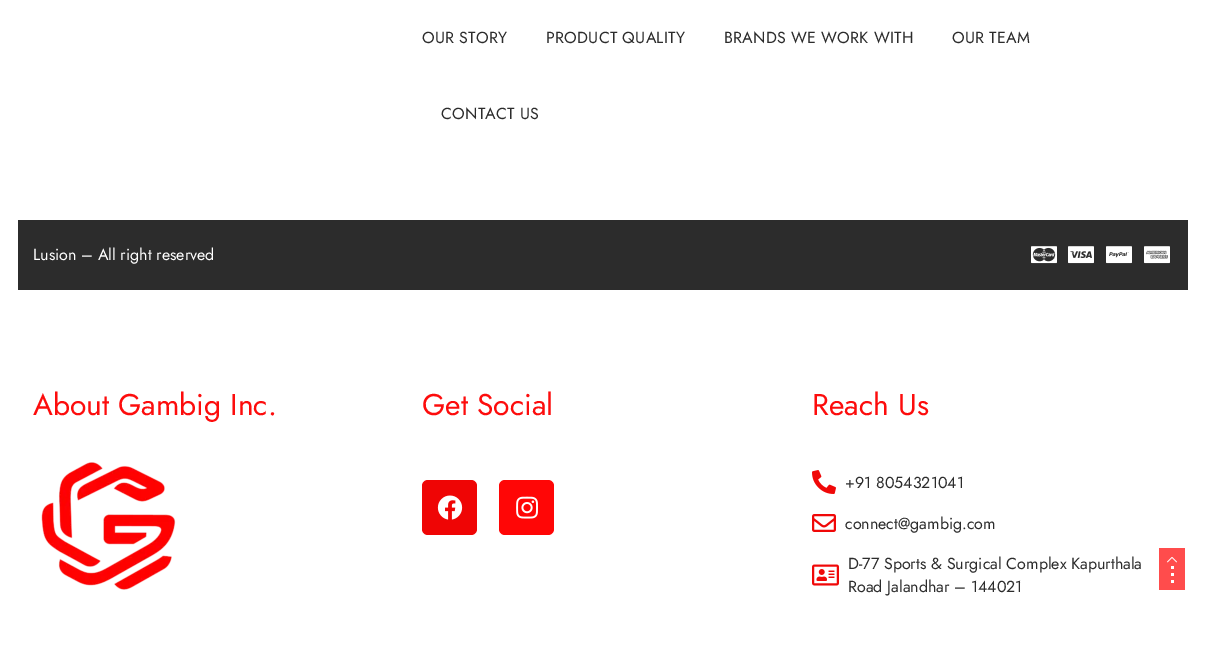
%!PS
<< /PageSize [1205 650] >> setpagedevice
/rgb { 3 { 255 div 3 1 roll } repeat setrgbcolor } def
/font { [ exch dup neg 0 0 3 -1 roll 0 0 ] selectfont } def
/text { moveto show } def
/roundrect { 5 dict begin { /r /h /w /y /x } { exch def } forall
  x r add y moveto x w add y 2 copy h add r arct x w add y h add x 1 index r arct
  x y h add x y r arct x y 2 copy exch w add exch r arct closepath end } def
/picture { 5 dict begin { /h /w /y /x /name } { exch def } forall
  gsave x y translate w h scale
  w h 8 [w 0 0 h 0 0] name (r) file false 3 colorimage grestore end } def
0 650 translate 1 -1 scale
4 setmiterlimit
255 255 255 rgb
0 0 1205 650 rectfill
44 44 44 rgb
18 220 1170 70 rectfill
(img_01.rgb) 1031 246 26 18 picture
(img_02.rgb) 1068 246 26 18 picture
(img_03.rgb) 1106 246 26 18 picture
(img_04.rgb) 1144 246 26 18 picture
(img_05.rgb) 41 462 135 128 picture
239 5 5 rgb
422 480 55 55 6 roundrect fill
(img_06.rgb) 437 495 26 25 picture
255 6 6 rgb
499 480 55 55 6 roundrect fill
(img_07.rgb) 516 496 22 23 picture
(img_08.rgb) 812 470 24 24 picture
(img_09.rgb) 812 514 24 18 picture
(img_10.rgb) 812 564 27 22 picture
255 76 76 rgb
1159 548 26 42 rectfill
(img_11.rgb) 1167 557 10 6 picture
255 255 255 rgb
1171 566 3 3 rectfill
1171 573 3 3 rectfill
1171 580 3 3 rectfill
/Jost-Regular 16 font
44 44 44 rgb
422 43 moveto 0.25 0 (OUR STORY) ashow
546 43 moveto 0.25 0 (PRODUCT QUALITY) ashow
724 43 moveto 0.25 0 (BRANDS WE WORK WITH) ashow
952 43 moveto 0.25 0 (OUR TEAM) ashow
441 119 moveto 0.25 0 (CONTACT US) ashow
255 255 255 rgb
(Lusion) 33 260 text
(– All right reserved) 81 260 text
/Jost-Regular 30 font
253 12 12 rgb
(About Gambig Inc.) 33 415 text
(Get Social) 422 415 text
(Reach Us) 812 415 text
/Jost-Regular 16 font
44 44 44 rgb
(+91 8054321041) 845 488 text
(connect@gambig.com) 845 529 text
(D-77 Sports & Surgical Complex Kapurthala) 848 569 text
(Road Jalandhar – 144021) 848 592 text
showpage
